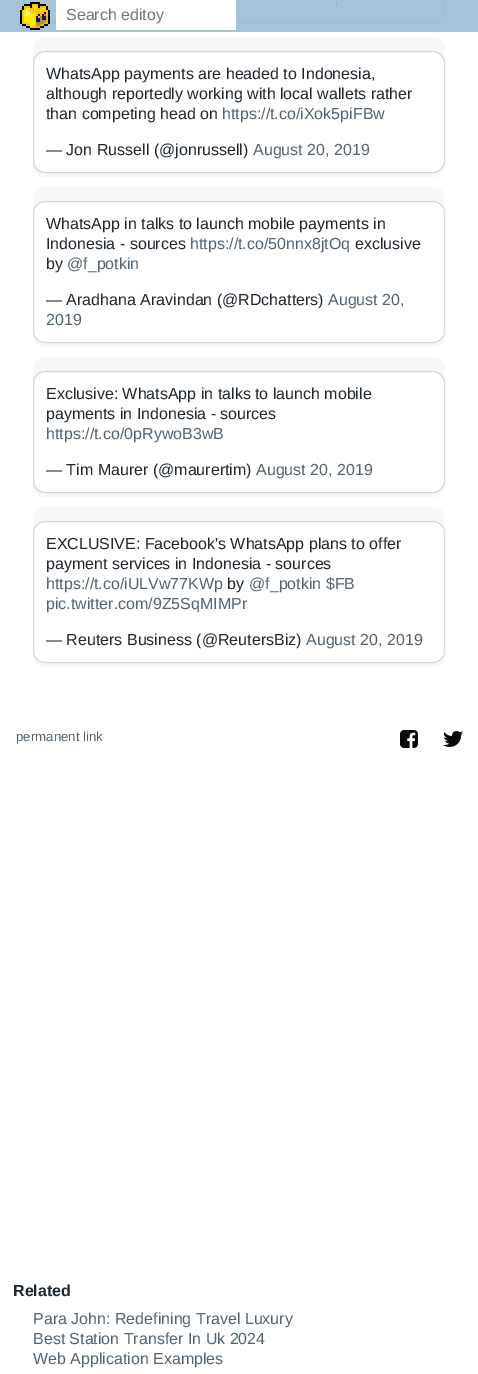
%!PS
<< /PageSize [478 1374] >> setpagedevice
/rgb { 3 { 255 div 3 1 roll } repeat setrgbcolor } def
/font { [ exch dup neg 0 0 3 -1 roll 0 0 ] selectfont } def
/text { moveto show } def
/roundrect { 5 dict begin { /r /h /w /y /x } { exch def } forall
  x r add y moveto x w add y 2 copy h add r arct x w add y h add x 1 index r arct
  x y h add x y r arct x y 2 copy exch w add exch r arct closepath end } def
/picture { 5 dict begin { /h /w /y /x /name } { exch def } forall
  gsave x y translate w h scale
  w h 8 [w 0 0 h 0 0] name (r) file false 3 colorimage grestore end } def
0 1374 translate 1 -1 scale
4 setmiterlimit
255 255 255 rgb
0 0 478 1374 rectfill
166 195 215 rgb
0 0 478 32 rectfill
160 191 211 rgb
33.5 -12.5 411 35 11.5 roundrect stroke
247 247 247 rgb
33 37 412 140 12 roundrect fill
255 255 255 rgb
33.5 51.5 411 121 11.5 roundrect gsave fill grestore
207 217 222 rgb
stroke
247 247 247 rgb
33 187 412 160 12 roundrect fill
255 255 255 rgb
33.5 201.5 411 141 11.5 roundrect gsave fill grestore
207 217 222 rgb
stroke
247 247 247 rgb
33 357 412 140 12 roundrect fill
255 255 255 rgb
33.5 371.5 411 121 11.5 roundrect gsave fill grestore
207 217 222 rgb
stroke
247 247 247 rgb
33 507 412 160 12 roundrect fill
255 255 255 rgb
33.5 521.5 411 141 11.5 roundrect gsave fill grestore
207 217 222 rgb
stroke
(img_01.rgb) 400 730 18 18 picture
(img_02.rgb) 443 731 20 16 picture
(img_03.rgb) 20 2 30 28 picture
180 190 180 rgb
56 30 180 1 rectfill
255 255 255 rgb
56 0 180 30 rectfill
/LiberationSans-Regular 16 font
145 177 197 rgb
(,) 334 5 text
31 39 47 rgb
(WhatsApp payments are headed to Indonesia,) 46 79 text
(although reportedly working with local wallets rather) 46 99 text
(than competing head on) 46 119 text
83 100 113 rgb
(https://t.co/iXok5piFBw) 222 119 text
31 39 47 rgb
(— Jon Russell \(@jonrussell\)) 46 155 text
83 100 113 rgb
(August 20, 2019) 253 155 text
31 39 47 rgb
(WhatsApp in talks to launch mobile payments in) 46 229 text
(Indonesia - sources) 46 249 text
83 100 113 rgb
(https://t.co/50nnx8jtOq) 190 249 text
31 39 47 rgb
(exclusive) 355 249 text
(by) 46 269 text
83 100 113 rgb
(@f_potkin) 67 269 text
31 39 47 rgb
(— Aradhana Aravindan \(@RDchatters\)) 46 305 text
83 100 113 rgb
(August 20,) 328 305 text
(2019) 46 325 text
31 39 47 rgb
(Exclusive: WhatsApp in talks to launch mobile) 46 399 text
(payments in Indonesia - sources) 46 419 text
83 100 113 rgb
(https://t.co/0pRywoB3wB) 46 439 text
31 39 47 rgb
(— Tim Maurer \(@maurertim\)) 46 475 text
83 100 113 rgb
(August 20, 2019) 256 475 text
31 39 47 rgb
(EXCLUSIVE: Facebook's WhatsApp plans to offer) 46 549 text
(payment services in Indonesia - sources) 46 569 text
83 100 113 rgb
(https://t.co/iULVw77KWp) 46 589 text
31 39 47 rgb
(by) 227 589 text
83 100 113 rgb
(@f_potkin $FB) 249 589 text
(pic.twitter.com/9Z5SqMIMPr) 46 609 text
31 39 47 rgb
(— Reuters Business \(@ReutersBiz\)) 46 645 text
83 100 113 rgb
(August 20, 2019) 306 645 text
/LiberationSans-Regular 13.25 font
(permanent link) 16 741 text
/LiberationSans-Bold 16 font
31 39 47 rgb
(Related) 13 1296 text
/LiberationSans-Regular 16 font
83 100 113 rgb
(Para John: Redefining Travel Luxury) 33 1324 text
(Best Station Transfer In Uk 2024) 33 1344 text
(Web Application Examples) 33 1364 text
117 117 117 rgb
(Search editoy) 66 20 text
showpage
